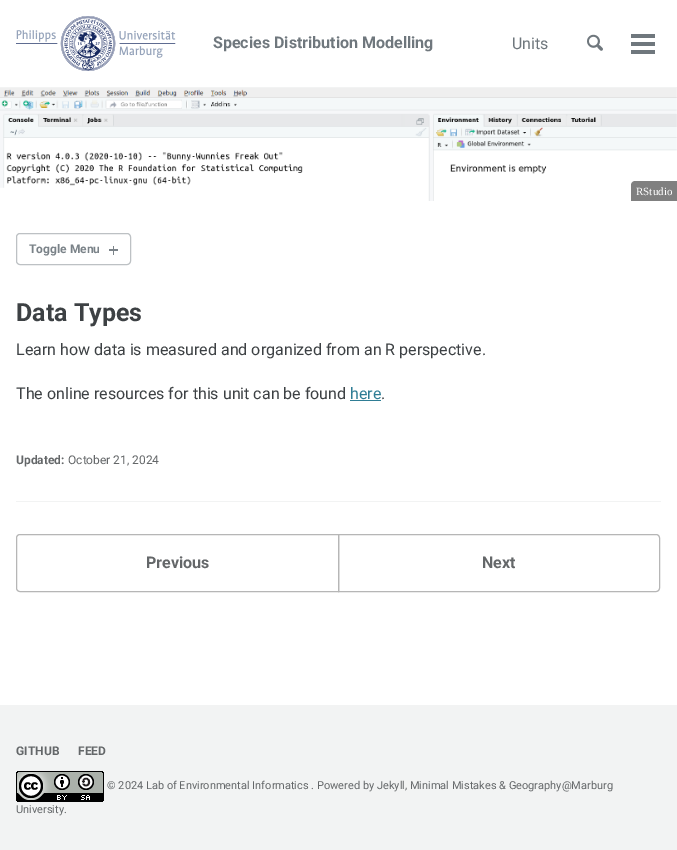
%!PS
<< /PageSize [677 850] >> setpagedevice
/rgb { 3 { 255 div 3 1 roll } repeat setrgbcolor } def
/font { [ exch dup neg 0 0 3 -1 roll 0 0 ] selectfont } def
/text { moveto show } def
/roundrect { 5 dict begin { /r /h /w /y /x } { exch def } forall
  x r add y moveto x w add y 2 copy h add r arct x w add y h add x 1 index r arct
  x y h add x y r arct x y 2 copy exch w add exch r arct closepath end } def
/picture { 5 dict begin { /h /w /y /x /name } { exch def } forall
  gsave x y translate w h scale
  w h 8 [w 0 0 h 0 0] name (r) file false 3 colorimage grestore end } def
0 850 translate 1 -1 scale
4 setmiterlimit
255 255 255 rgb
0 0 677 850 rectfill
242 243 243 rgb
0 87 677 1 rectfill
(img_01.rgb) 16 16 160 55 picture
(img_02.rgb) 587 34 16 17 picture
111 119 125 rgb
631 42 24 4 rectfill
631 34 24 4 rectfill
631 50 24 4 rectfill
(img_03.rgb) 0 88 677 113 picture
128 128 128 rgb
635 181 moveto 42 0 rlineto 0 20 rlineto -46 0 rlineto 0 -16 rlineto 0 -2 2 -4 4 -4 rcurveto closepath fill
189 193 196 rgb
16.5 233.5 114 31 3.5 roundrect stroke
122 130 136 rgb
109 249 9 2 rectfill
113 246 1 9 rectfill
47 125 149 rgb
350 400 31 1 rectfill
242 243 243 rgb
16 501 645 1 rectfill
182 182 182 rgb
20 534.5 moveto 318.5 0 rlineto 0 57 rlineto -318.5 0 rlineto -2 0 -3.5 -1.5 -3.5 -3.5 rcurveto 0 -50 rlineto 0 -2 1.5 -3.5 3.5 -3.5 rcurveto closepath stroke
338.5 534.5 moveto 317.5 0 rlineto 2 0 3.5 1.5 3.5 3.5 rcurveto 0 50 rlineto 0 2 -1.5 3.5 -3.5 3.5 rcurveto -317.5 0 rlineto closepath stroke
242 243 243 rgb
0 705 677 145 rectfill
(img_04.rgb) 16 771 88 31 picture
/Roboto-Bold 16 font
111 119 125 rgb
(Species Distribution Modelling) 213 48 text
/Roboto-Regular 16 font
(Units) 512 49 text
/LiberationSerif-Regular 11 font
255 255 255 rgb
(RStudio) 636 195 text
/Roboto-Bold 12 font
122 130 136 rgb
(Toggle Menu) 29 253 text
/Roboto-Bold 25 font
61 65 68 rgb
(Data Types) 16 321 text
/Roboto-Regular 16 font
(Learn how data is measured and organized from an R perspective.) 16 355 text
(The online resources for this unit can be found) 16 399 text
47 125 149 rgb
(here) 350 399 text
61 65 68 rgb
(.) 381 399 text
/Roboto-Bold 12 font
100 103 105 rgb
(Updated:) 16 464 text
/Roboto-Regular 12 font
(October 21, 2024) 68 464 text
/Roboto-Bold 16 font
(Previous) 146 568 text
(Next) 482 568 text
/Roboto-Bold 12 font
(GITHUB) 16 755 text
(FEED) 78 755 text
/Roboto-Regular 11 font
(© 2024 Lab of Environmental Informatics . Powered by Jekyll, Minimal Mistakes & Geography@Marburg) 107 789 text
(University.) 16 813 text
showpage
